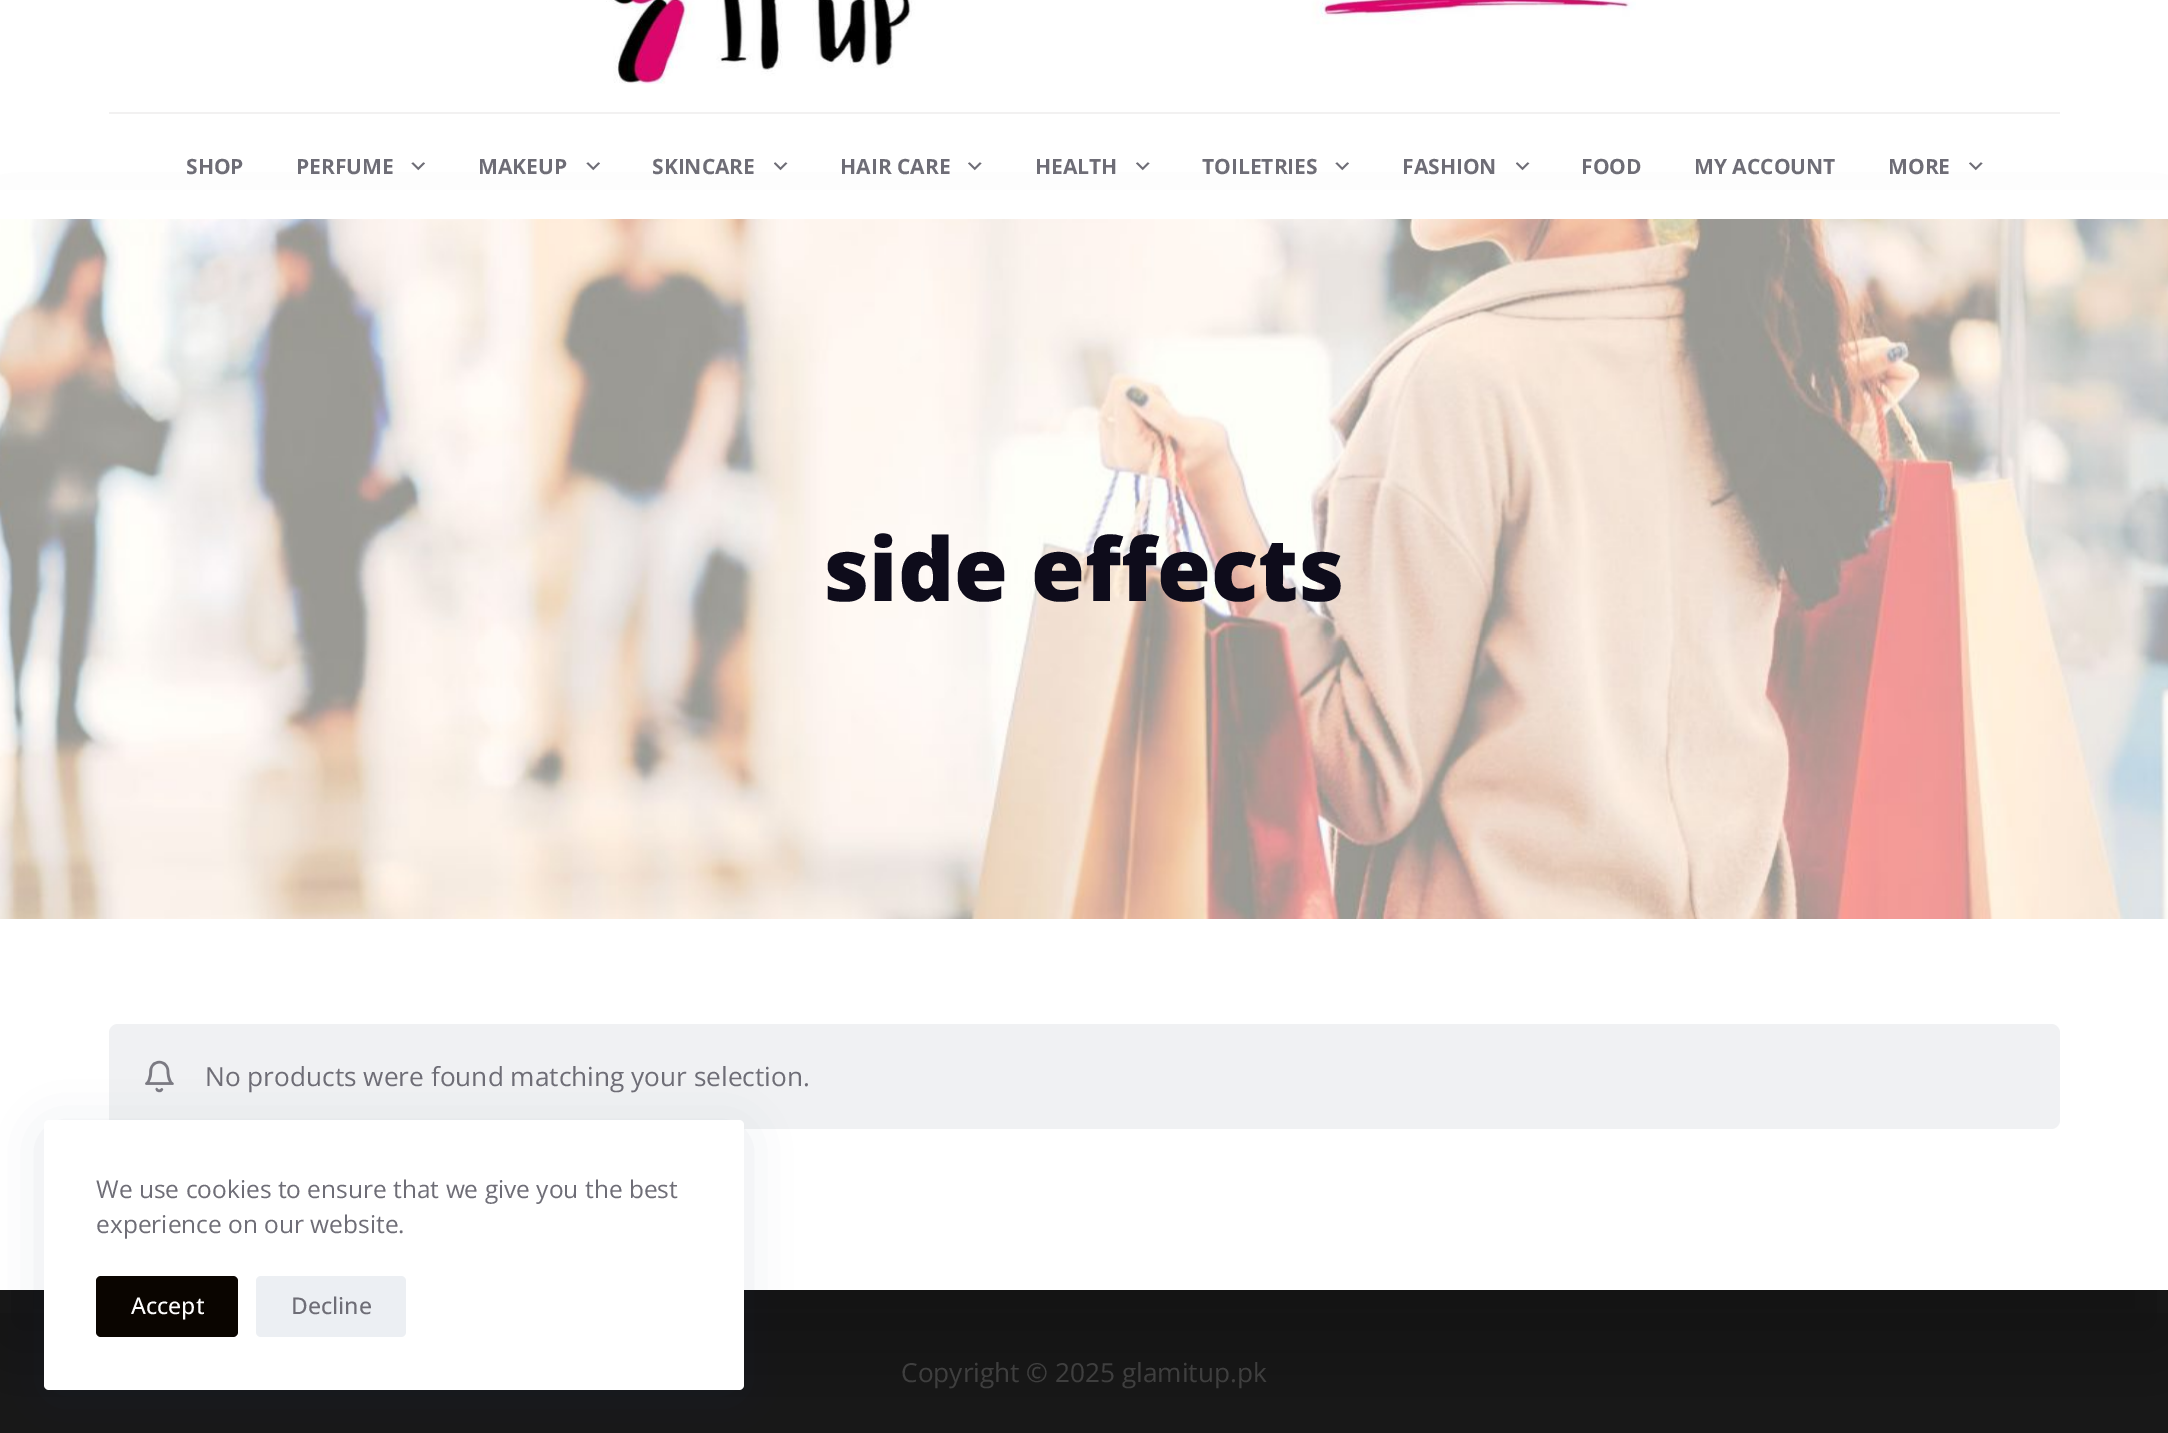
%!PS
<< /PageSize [2168 1433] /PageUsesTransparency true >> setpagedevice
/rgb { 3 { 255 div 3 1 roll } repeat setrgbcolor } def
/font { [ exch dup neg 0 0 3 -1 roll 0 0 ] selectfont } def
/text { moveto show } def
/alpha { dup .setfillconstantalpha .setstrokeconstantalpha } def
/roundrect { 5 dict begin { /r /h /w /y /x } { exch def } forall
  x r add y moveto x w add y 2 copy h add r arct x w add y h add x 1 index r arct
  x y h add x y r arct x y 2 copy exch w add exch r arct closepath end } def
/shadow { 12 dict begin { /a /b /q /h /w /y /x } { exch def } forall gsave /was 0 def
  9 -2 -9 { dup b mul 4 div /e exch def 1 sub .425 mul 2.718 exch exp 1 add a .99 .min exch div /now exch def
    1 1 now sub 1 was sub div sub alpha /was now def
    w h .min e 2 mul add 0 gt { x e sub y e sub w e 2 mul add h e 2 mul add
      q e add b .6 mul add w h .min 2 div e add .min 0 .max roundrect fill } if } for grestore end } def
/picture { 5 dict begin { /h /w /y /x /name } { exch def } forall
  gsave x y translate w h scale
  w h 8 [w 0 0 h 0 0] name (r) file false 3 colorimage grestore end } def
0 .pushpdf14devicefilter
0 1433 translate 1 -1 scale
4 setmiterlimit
255 255 255 rgb
0 0 2168 1433 rectfill
(img_01.rgb) 606 0 1030 84 picture
27 27 27 rgb
0 1290 2168 23 rectfill
24 24 24 rgb
0 1313 2168 120 rectfill
0 0 0 rgb
0 271 2168 1071 0 44 0.3 shadow
255 255 255 rgb
0 190 2168 29 rectfill
242 241 241 rgb
109 112 1951 2 rectfill
(img_02.rgb) 411 162 14 9 picture
(img_02.rgb) 586 162 14 9 picture
(img_03.rgb) 774 162 14 9 picture
(img_04.rgb) 968 162 14 9 picture
(img_04.rgb) 1136 162 14 9 picture
(img_02.rgb) 1335 162 14 9 picture
(img_03.rgb) 1516 162 14 9 picture
(img_04.rgb) 1969 162 14 9 picture
255 255 255 rgb
0 919 2168 371 rectfill
(img_05.rgb) 0 219 2168 700 picture
240 241 243 rgb
109 1024 1951 105 9 roundrect fill
(img_06.rgb) 145 1060 29 33 picture
34 56 101 rgb
53 1138 682 252 0 26 0.15 shadow
255 255 255 rgb
44 1120 700 270 5 roundrect fill
10 5 0 rgb
96 1276 142 61 5 roundrect fill
236 239 243 rgb
256 1276 150 61 5 roundrect fill
/OpenSans-Bold 21 font
110 109 118 rgb
(SHOP) 186 174 text
(PERFUME) 296 174 text
(MAKEUP) 478 174 text
(SKINCARE) 652 174 text
(HAIR CARE) 840 174 text
(HEALTH) 1035 174 text
(TOILETRIES) 1202 174 text
(FASHION) 1402 174 text
(FOOD) 1581 174 text
(MY ACCOUNT) 1694 174 text
(MORE) 1888 174 text
/OpenSans-ExtraBold 87.5 font
14 12 27 rgb
(side effects) 824 601 text
/OpenSans-Regular 26.25 font
110 109 118 rgb
(No products were found matching your selection.) 205 1086 text
63 63 63 rgb
(Copyright © 2025 glamitup.pk) 901 1382 text
/OpenSans-Regular 24.5 font
110 109 118 rgb
(We use cookies to ensure that we give you the best) 96 1198 text
(experience on our website.) 96 1233 text
/OpenSans-Medium 23 font
255 255 255 rgb
(Accept) 131 1314 text
110 109 118 rgb
(Decline) 291 1314 text
.poppdf14devicefilter showpage
